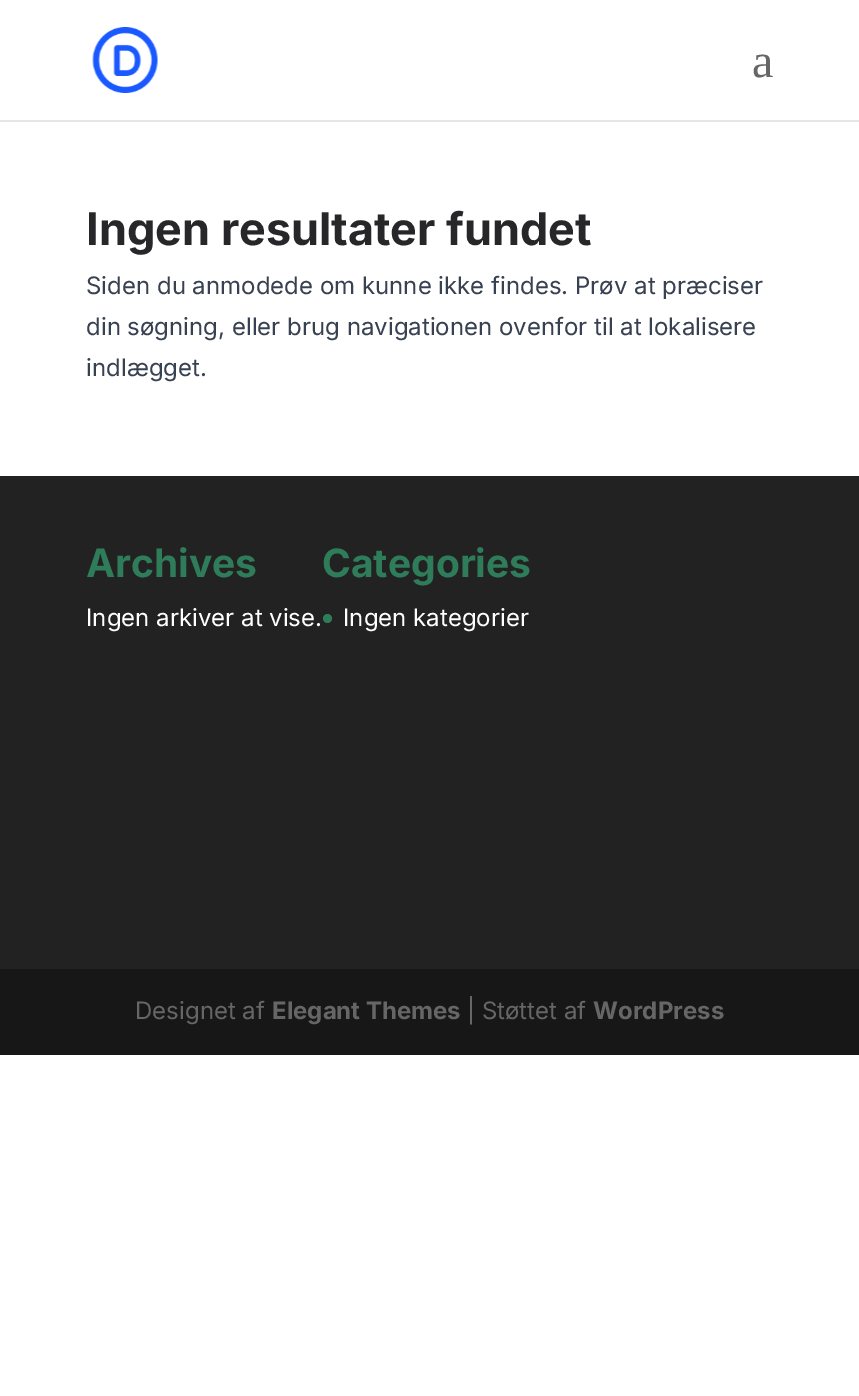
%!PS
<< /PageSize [859 1396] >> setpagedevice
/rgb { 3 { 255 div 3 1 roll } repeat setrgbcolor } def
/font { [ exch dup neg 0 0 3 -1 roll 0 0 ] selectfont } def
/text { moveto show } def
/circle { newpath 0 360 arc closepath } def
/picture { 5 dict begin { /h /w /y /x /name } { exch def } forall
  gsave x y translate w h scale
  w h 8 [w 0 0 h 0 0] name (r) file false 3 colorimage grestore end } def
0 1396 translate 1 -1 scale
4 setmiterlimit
255 255 255 rgb
0 0 859 1396 rectfill
230 230 230 rgb
0 120 moveto 0 2 rlineto 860 0 rlineto 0 -120 rlineto 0 118 rlineto closepath fill
(img_01.rgb) 92 27 66 66 picture
34 34 34 rgb
0 476 859 493 rectfill
46 124 90 rgb
327.5 618.5 4.5 circle fill
23 23 23 rgb
0 969 859 86 rectfill
/LiberationSerif-Regular 48 font
102 102 102 rgb
(a) 752 77 text
/Inter-Bold 45 font
39 39 42 rgb
(Ingen resultater fundet) 86 245 text
/Inter-Regular 24 font
55 65 81 rgb
(Siden du anmodede om kunne ikke findes. Prøv at præciser) 86 294 text
(din søgning, eller brug navigationen ovenfor til at lokalisere) 86 335 text
(indlægget.) 86 376 text
/Inter-Bold 39 font
46 124 90 rgb
(Archives) 86 577 text
/Inter-Regular 24 font
255 255 255 rgb
(Ingen arkiver at vise.) 86 626 text
/Inter-Bold 39 font
46 124 90 rgb
(Categories) 322 577 text
/Inter-Regular 24 font
255 255 255 rgb
(Ingen kategorier) 343 626 text
102 102 102 rgb
(Designet af) 135 1019 text
/Inter-Bold 24 font
(Elegant Themes) 272 1019 text
/Inter-Regular 24 font
(| Støttet af) 467 1019 text
/Inter-Bold 24 font
(WordPress) 593 1019 text
showpage
